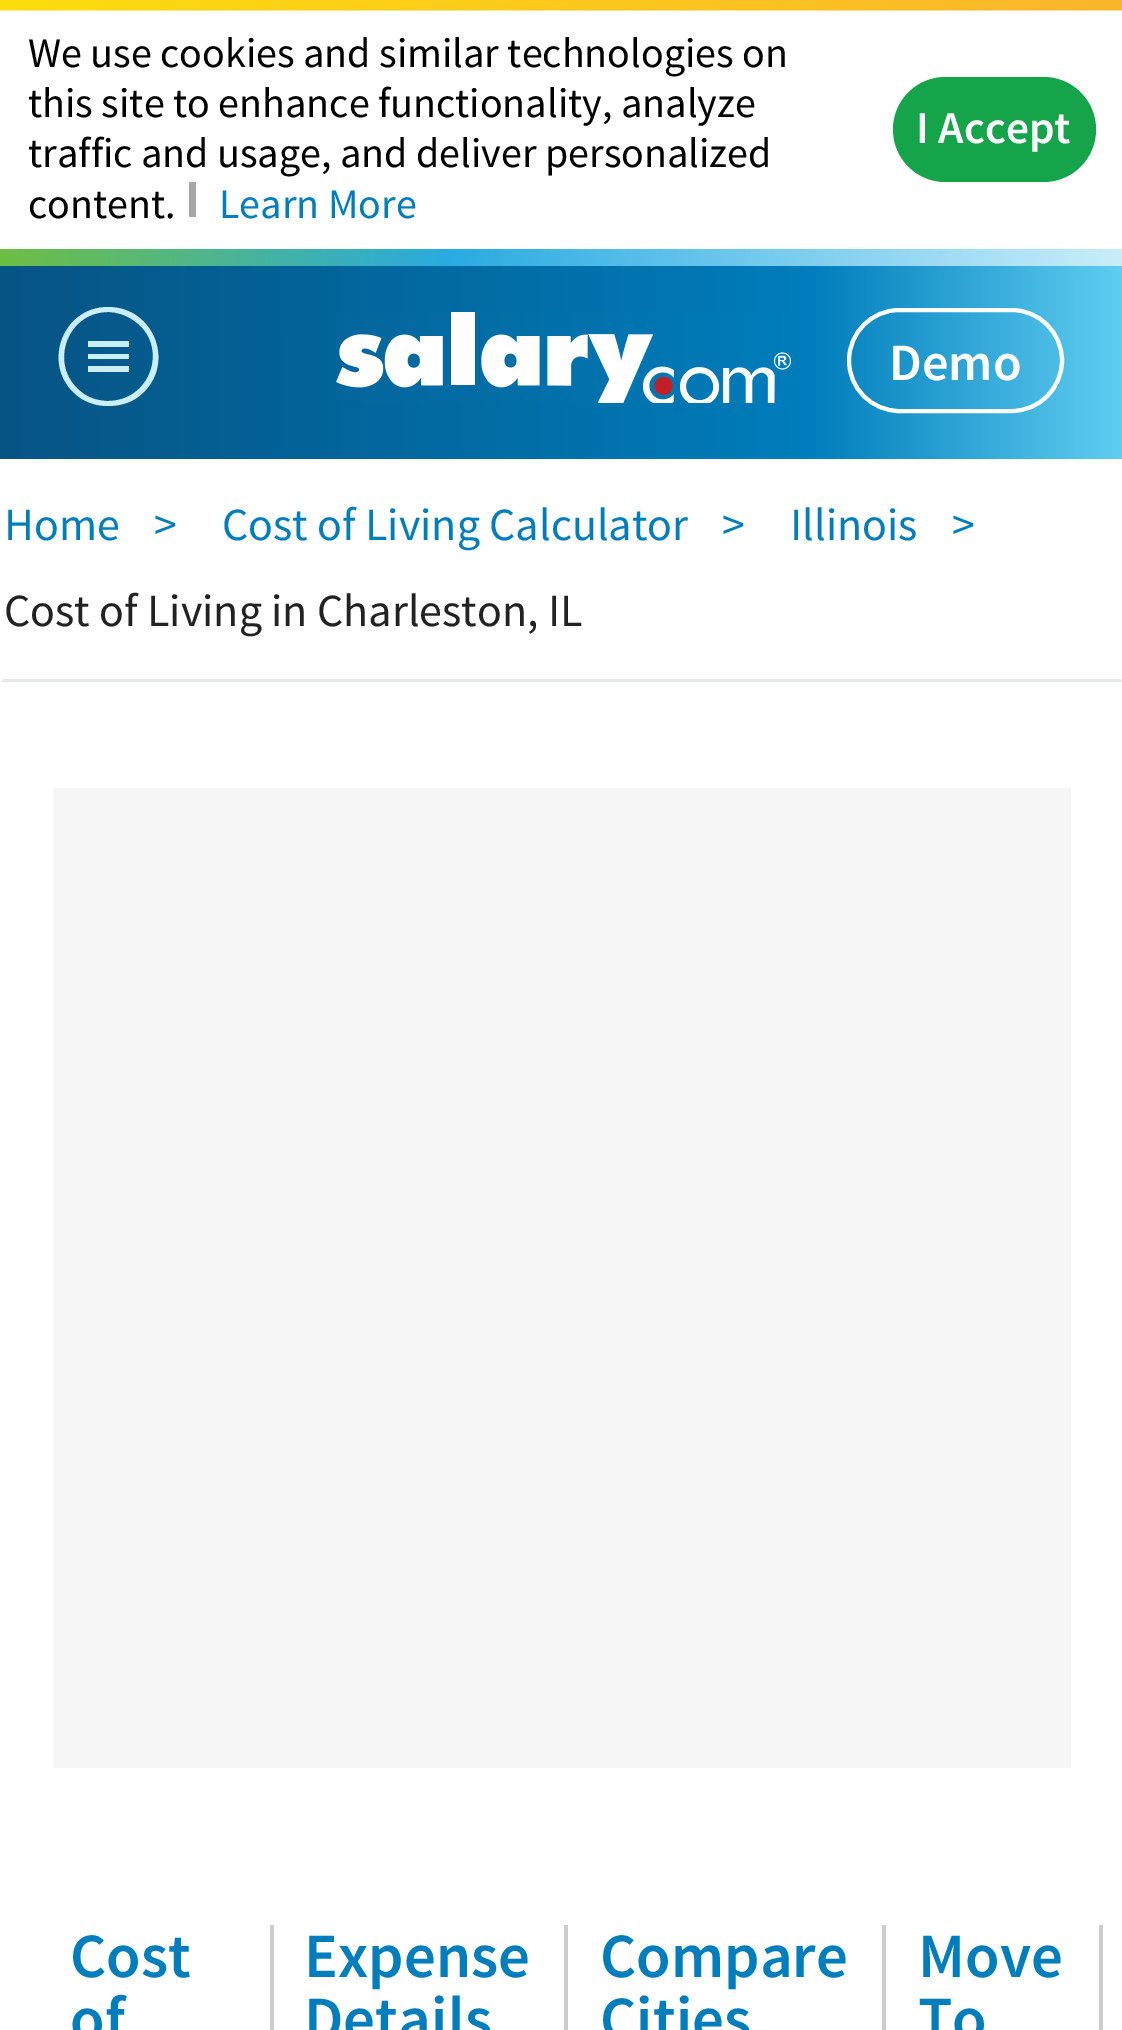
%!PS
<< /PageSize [1122 2030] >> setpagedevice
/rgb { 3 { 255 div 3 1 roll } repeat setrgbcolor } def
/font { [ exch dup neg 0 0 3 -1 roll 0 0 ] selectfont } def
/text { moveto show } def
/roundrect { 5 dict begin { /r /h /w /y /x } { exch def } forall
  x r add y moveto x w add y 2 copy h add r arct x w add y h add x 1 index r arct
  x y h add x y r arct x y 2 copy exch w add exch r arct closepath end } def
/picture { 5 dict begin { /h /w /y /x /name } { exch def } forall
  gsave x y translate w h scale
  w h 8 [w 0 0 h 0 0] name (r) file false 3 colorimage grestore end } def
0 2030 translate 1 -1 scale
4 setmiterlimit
255 255 255 rgb
0 0 1122 2030 rectfill
(img_01.rgb) 0 0 1122 11 picture
167 167 167 rgb
189 182 7 35 rectfill
22 164 74 rgb
893 77 203 105 52.5 roundrect fill
gsave 0 266 moveto 1122 0 rlineto 0 193 rlineto -1122 0 rlineto closepath clip newpath
<< /ShadingType 2 /ColorSpace /DeviceRGB /Coords [0 354 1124 353] /Extend [true true] /Function << /FunctionType 3 /Domain [0 1] /Functions [<< /FunctionType 2 /Domain [0 1] /C0 [0.027 0.329 0.518] /C1 [0 0.49 0.737] /N 1 >> << /FunctionType 2 /Domain [0 1] /C0 [0 0.49 0.737] /C1 [0.376 0.808 0.945] /N 1 >>] /Bounds [0.72] /Encode [0 1 0 1] >> >> shfill grestore
gsave 0 249 moveto 1122 0 rlineto 0 17 rlineto -1122 0 rlineto closepath clip newpath
<< /ShadingType 2 /ColorSpace /DeviceRGB /Coords [0 257 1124 257] /Extend [true true] /Function << /FunctionType 3 /Domain [0 1] /Functions [<< /FunctionType 2 /Domain [0 1] /C0 [0.435 0.745 0.267] /C1 [0.161 0.671 0.886] /N 1 >> << /FunctionType 2 /Domain [0 1] /C0 [0.161 0.671 0.886] /C1 [0.792 0.933 0.98] /N 1 >>] /Bounds [0.4] /Encode [0 1 0 1] >> >> shfill grestore
202 238 250 rgb
88 341 moveto 41 0 rlineto 0 6 rlineto -41 0 rlineto closepath 88 354 moveto 41 0 rlineto 0 5 rlineto -41 0 rlineto closepath 88 366 moveto 41 0 rlineto 0 6 rlineto -41 0 rlineto closepath 108 307 moveto -47 0 -68 61 -29 90 rcurveto 8 6 19 9 29 9 rcurveto 11 0 22 -3 30 -9 rcurveto 39 -29 18 -90 -30 -90 rcurveto closepath 108 401 moveto -8 0 -17 -2 -24 -7 rcurveto -37 -25 -19 -82 24 -82 rcurveto 9 0 18 3 25 8 rcurveto 37 24 19 81 -25 81 rcurveto closepath fill
(img_02.rgb) 336 312 455 91 picture
255 255 255 rgb
4 setlinewidth
849 310 213 101 50.5 roundrect stroke
230 231 232 rgb
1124 682 moveto -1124 0 rlineto 4 -3 rlineto 1116 0 rlineto closepath fill
246 246 246 rgb
53 788 1018 980 rectfill
204 204 204 rgb
270 1925 4 105 rectfill
564 1925 4 105 rectfill
882 1925 4 105 rectfill
1099 1925 4 105 rectfill
/SourceSansPro-Regular 42 font
0 0 0 rgb
(We use cookies and similar technologies on) 28 67 text
(this site to enhance functionality, analyze) 28 117 text
(traffic and usage, and deliver personalized) 28 167 text
(content.) 28 218 text
0 125 188 rgb
(Learn More) 219 218 text
/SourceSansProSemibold-SemiBold 45.5 font
255 255 255 rgb
(I Accept) 916 143 text
/SourceSansProSemibold-SemiBold 52.5 font
(Demo) 889 380 text
/SourceSansPro-Regular 46 font
0 125 188 rgb
(Home) 4 540 text
(>) 154 540 text
(Cost of Living Calculator) 222 540 text
(>) 722 540 text
(Illinois) 790 540 text
(>) 952 540 text
33 34 33 rgb
(Cost of Living in Charleston, IL) 4 626 text
/SourceSansProSemibold-SemiBold 63 font
0 125 188 rgb
(Cost) 70 1977 text
(of) 70 2040 text
(Expense) 304 1977 text
(Details) 304 2040 text
(Compare) 600 1977 text
(Cities) 600 2040 text
(Move) 918 1977 text
(To) 918 2040 text
showpage
